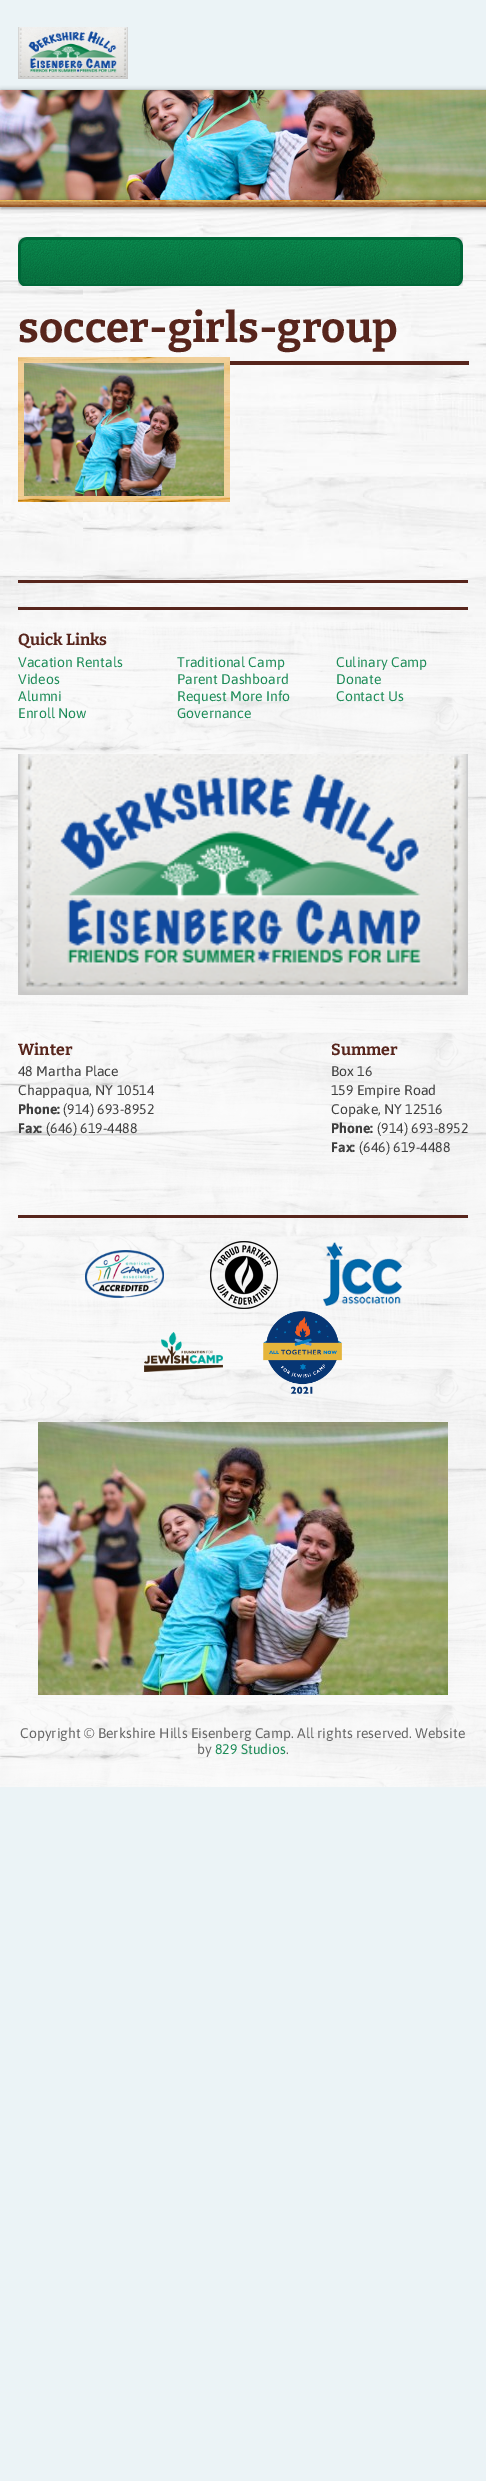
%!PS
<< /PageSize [486 2481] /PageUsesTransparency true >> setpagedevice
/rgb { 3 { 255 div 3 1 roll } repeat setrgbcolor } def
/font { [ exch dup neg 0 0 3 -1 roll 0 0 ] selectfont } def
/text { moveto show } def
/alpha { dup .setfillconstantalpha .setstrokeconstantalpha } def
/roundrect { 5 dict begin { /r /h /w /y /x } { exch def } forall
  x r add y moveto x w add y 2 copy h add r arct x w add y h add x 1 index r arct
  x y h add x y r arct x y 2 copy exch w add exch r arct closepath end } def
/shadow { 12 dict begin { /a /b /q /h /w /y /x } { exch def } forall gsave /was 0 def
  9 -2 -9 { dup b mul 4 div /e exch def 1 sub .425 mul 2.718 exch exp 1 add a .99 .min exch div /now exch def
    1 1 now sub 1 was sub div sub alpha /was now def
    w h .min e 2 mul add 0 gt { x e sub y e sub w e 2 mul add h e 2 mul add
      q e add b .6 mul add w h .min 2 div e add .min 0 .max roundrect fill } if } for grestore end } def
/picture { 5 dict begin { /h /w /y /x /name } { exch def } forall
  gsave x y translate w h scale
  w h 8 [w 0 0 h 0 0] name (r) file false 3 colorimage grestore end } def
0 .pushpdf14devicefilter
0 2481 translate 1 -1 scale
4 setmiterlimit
235 243 246 rgb
0 0 486 2481 rectfill
(img_01.rgb) 18 27 110 52 picture
(img_04.rgb) 0 207 486 415 picture
0 0 0 rgb
1 91 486 117 0 2.5 0.5 shadow
(img_02.rgb) 0 90 486 110 picture
gsave
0 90 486 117 rectclip
1 201 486 7 0 2 0.5 shadow
grestore
(img_03.rgb) 0 200 486 7 picture
(img_05.rgb) 18 237 430 49 picture
(img_06.rgb) 448 237 15 49 picture
87 37 28 rgb
230 361 239 4 rectfill
(img_07.rgb) 18 357 212 145 picture
18 580 450 3 rectfill
18 607 450 3 rectfill
(img_08.rgb) 0 622 486 1165 picture
(img_09.rgb) 18 754 450 241 picture
18 1215 450 3 rectfill
(img_10.rgb) 85 1250 79 48 picture
(img_11.rgb) 210 1241 68 68 picture
(img_12.rgb) 323 1242 79 64 picture
(img_13.rgb) 144 1332 79 40 picture
(img_14.rgb) 263 1311 79 83 picture
(img_15.rgb) 38 1422 410 273 picture
/Bitter-Bold 42 font
(soccer-girls-group) 18 342 text
/Bitter-Bold 16 font
(Quick Links) 18 645 text
/Asap-Regular 14 font
30 140 89 rgb
(Vacation Rentals) 18 667 text
(Traditional Camp) 177 667 text
(Culinary Camp) 336 667 text
(Videos) 18 684 text
(Parent Dashboard) 177 684 text
(Donate) 336 684 text
(Alumni) 18 701 text
(Request More Info) 177 701 text
(Contact Us) 336 701 text
(Enroll Now) 18 718 text
(Governance) 177 718 text
/Bitter-Bold 16 font
87 37 28 rgb
(Winter) 18 1055 text
/Asap-Regular 14 font
63 63 63 rgb
(48 Martha Place) 18 1076 text
(Chappaqua, NY 10514) 18 1095 text
/Asap-Bold 14 font
(Phone:) 18 1114 text
/Asap-Regular 14 font
(\(914\) 693-8952) 63 1114 text
/Asap-Bold 14 font
(Fax:) 18 1133 text
/Asap-Regular 14 font
(\(646\) 619-4488) 46 1133 text
/Bitter-Bold 16 font
87 37 28 rgb
(Summer) 331 1055 text
/Asap-Regular 14 font
63 63 63 rgb
(Box 16) 331 1076 text
(159 Empire Road) 331 1095 text
(Copake, NY 12516) 331 1114 text
/Asap-Bold 14 font
(Phone:) 331 1133 text
/Asap-Regular 14 font
(\(914\) 693-8952) 377 1133 text
/Asap-Bold 14 font
(Fax:) 331 1152 text
/Asap-Regular 14 font
(\(646\) 619-4488) 359 1152 text
102 102 102 rgb
(Copyright © Berkshire Hills Eisenberg Camp. All rights reserved. Website) 20 1738 text
(by) 197 1754 text
30 140 89 rgb
(829 Studios) 215 1754 text
102 102 102 rgb
(.) 286 1754 text
.poppdf14devicefilter showpage
